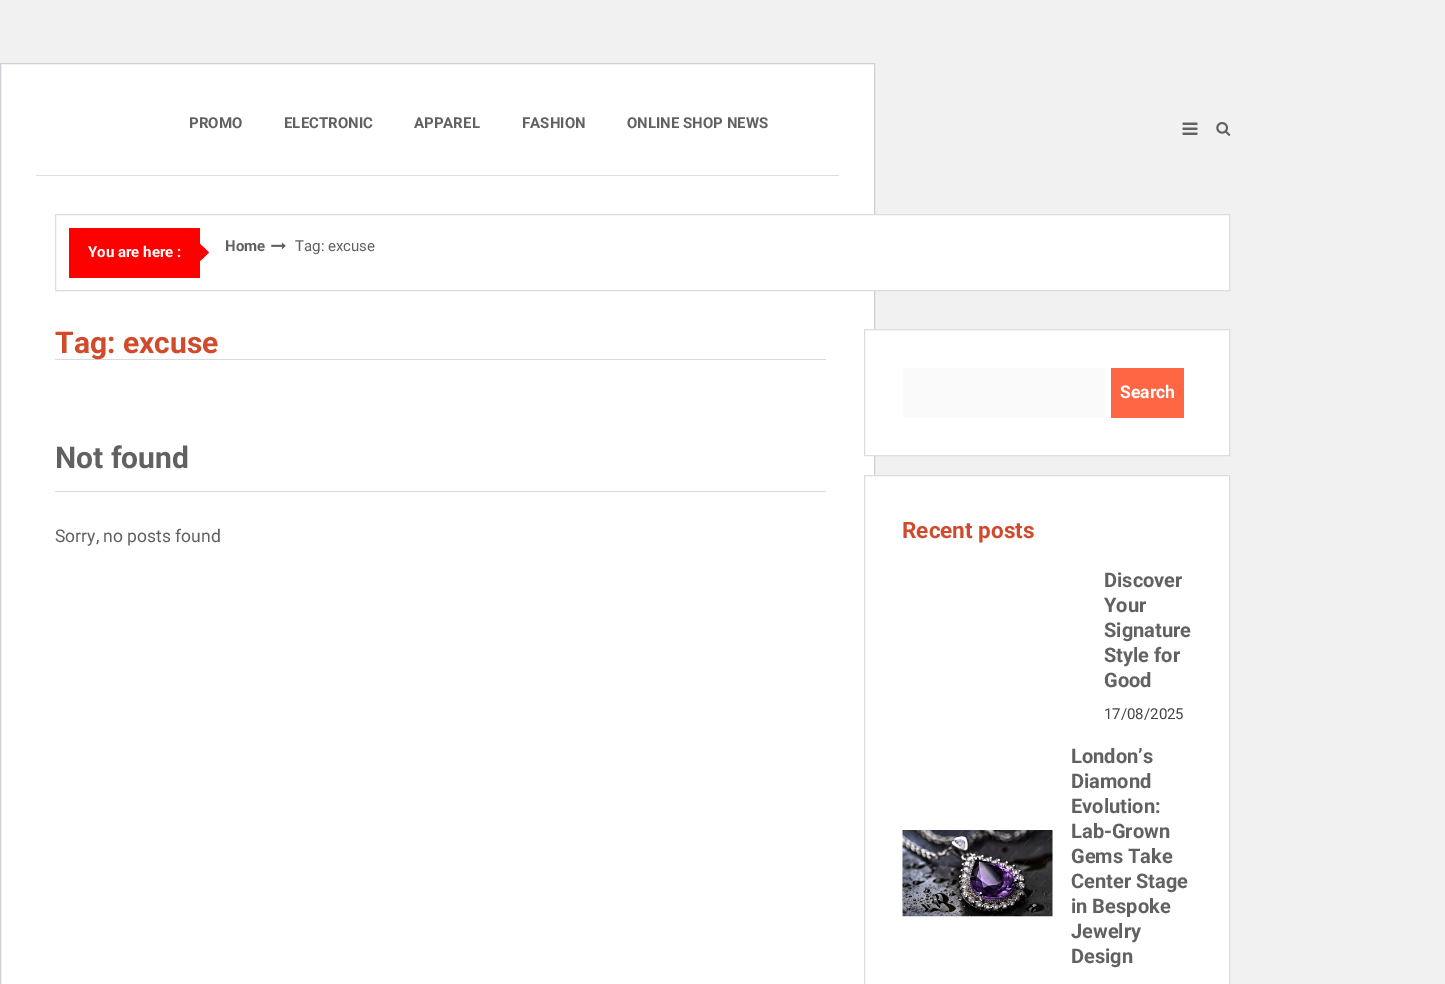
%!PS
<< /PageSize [1445 984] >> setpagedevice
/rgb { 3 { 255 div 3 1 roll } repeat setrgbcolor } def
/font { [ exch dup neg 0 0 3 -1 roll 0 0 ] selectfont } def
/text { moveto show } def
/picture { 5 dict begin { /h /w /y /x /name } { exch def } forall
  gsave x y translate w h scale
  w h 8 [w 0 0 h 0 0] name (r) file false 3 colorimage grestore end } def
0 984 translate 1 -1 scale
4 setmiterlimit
241 241 241 rgb
0 0 1445 984 rectfill
255 255 255 rgb
0.5 63.5 moveto 874 0 rlineto 0 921 rlineto -874 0 rlineto closepath gsave fill grestore
204 208 212 rgb
stroke
221 221 221 rgb
36 175 803 1 rectfill
(img_01.rgb) 1182 122 16 13 picture
(img_02.rgb) 1216 122 15 14 picture
255 255 255 rgb
874 215 355 75 rectfill
221 221 221 rgb
55.5 214.5 1174 76 rectstroke
255 0 0 rgb
69 228 131 50 rectfill
196 265 moveto 0 -25 rlineto 13 12.5 rlineto closepath fill
(img_03.rgb) 271 242 15 7 picture
218 218 218 rgb
55 359 771 1 rectfill
55 491 771 1 rectfill
255 255 255 rgb
874 330 355 125 rectfill
221 221 221 rgb
864.5 329.5 365 126 rectstroke
250 250 250 rgb
903 368 202 50 rectfill
255 102 68 rgb
1111 368 73 50 rectfill
255 255 255 rgb
874 476 355 508 rectfill
221 221 221 rgb
864.5 475.5 365 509 rectstroke
(img_04.rgb) 902 830 151 87 picture
/Roboto-Bold 15 font
97 97 97 rgb
(PROMO) 189 128 text
(ELECTRONIC) 284 128 text
(APPAREL) 414 128 text
(FASHION) 522 128 text
(ONLINE SHOP NEWS) 627 128 text
255 255 255 rgb
(You are here :) 88 257 text
97 97 97 rgb
(Home) 225 251 text
/Roboto-Regular 15 font
(Tag: excuse) 295 251 text
/Roboto-Bold 30 font
209 74 43 rgb
(Tag: excuse) 55 353 text
97 97 97 rgb
(Not found) 55 468 text
/Roboto-Regular 17.5 font
(Sorry, no posts found) 55 542 text
/Roboto-Bold 17.5 font
255 255 255 rgb
(Search) 1120 398 text
/Roboto-Bold 22.5 font
209 74 43 rgb
(Recent posts) 902 538 text
/Roboto-Bold 20 font
97 97 97 rgb
(Discover) 1104 587 text
(Your) 1104 612 text
(Signature) 1104 637 text
(Style for) 1104 662 text
(Good) 1104 687 text
/Roboto-Regular 15 font
68 68 68 rgb
(17/08/2025) 1104 719 text
/Roboto-Bold 20 font
97 97 97 rgb
(London’s) 1071 763 text
(Diamond) 1071 788 text
(Evolution:) 1071 813 text
(Lab-Grown) 1071 838 text
(Gems Take) 1071 863 text
(Center Stage) 1071 888 text
(in Bespoke) 1071 913 text
(Jewelry) 1071 938 text
(Design) 1071 963 text
showpage
